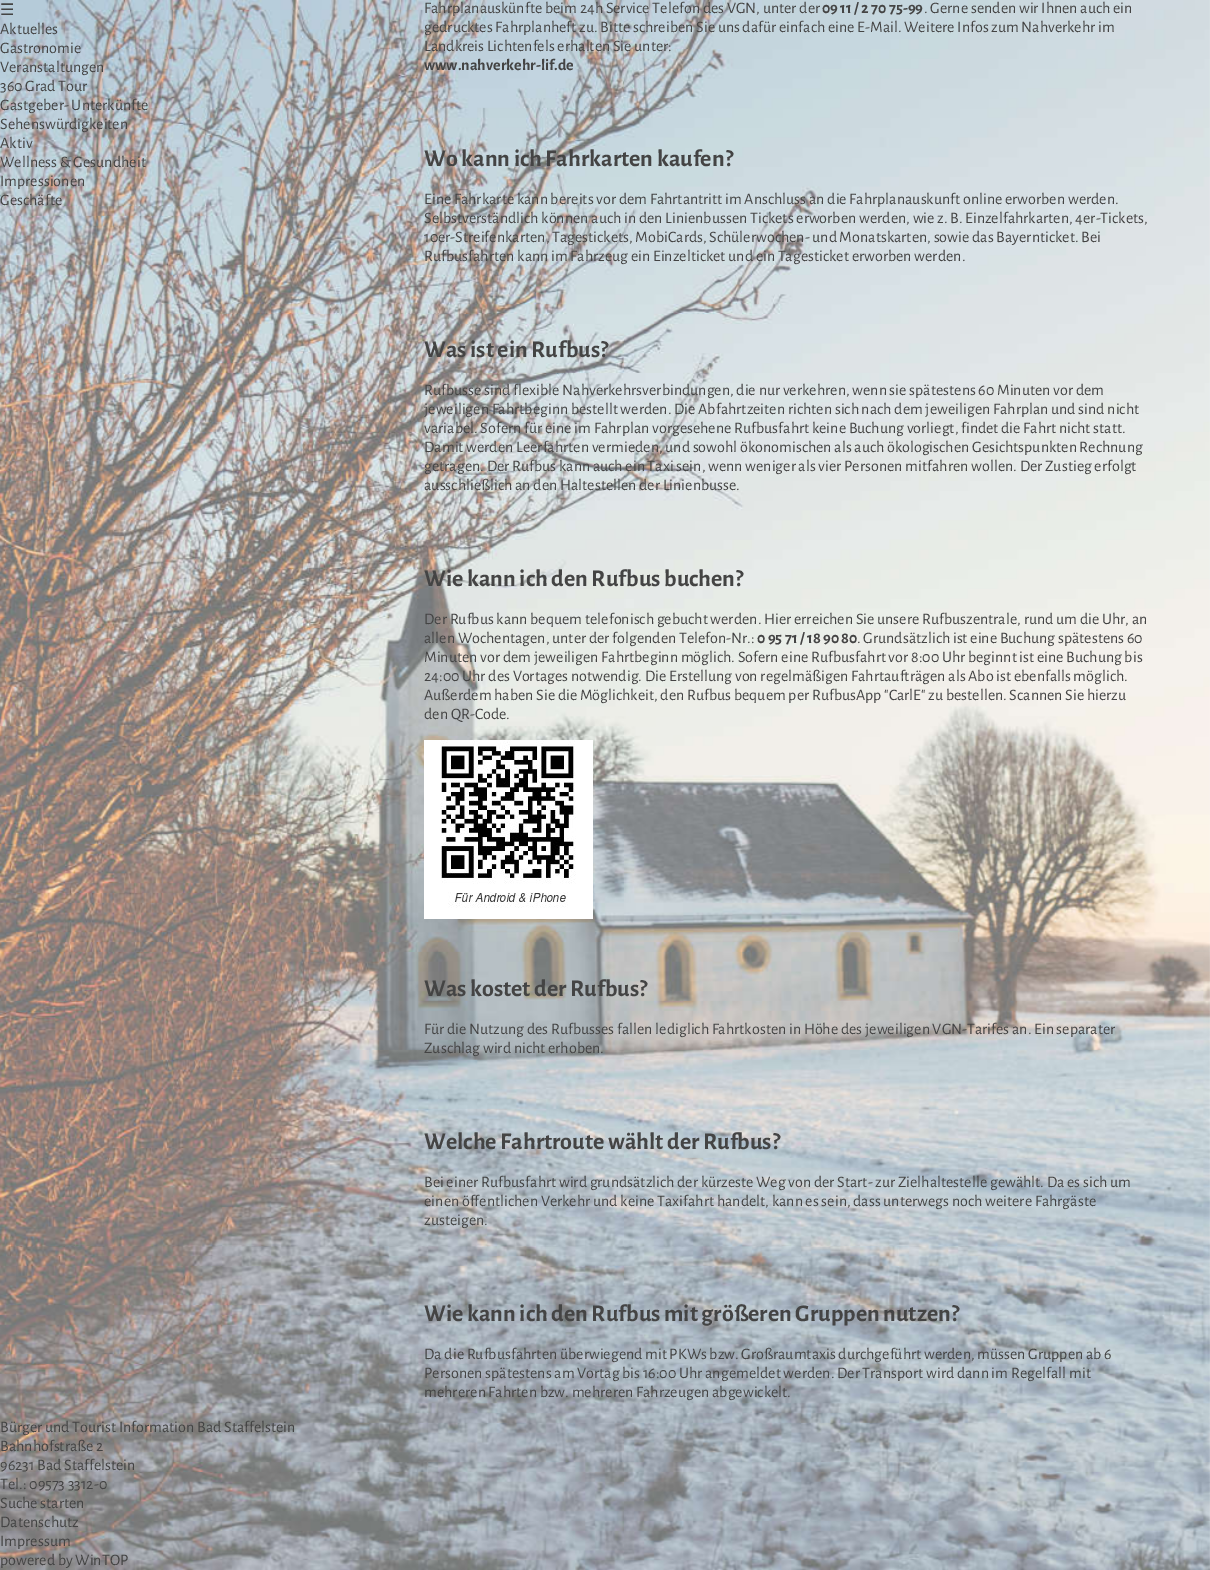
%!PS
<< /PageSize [1210 1570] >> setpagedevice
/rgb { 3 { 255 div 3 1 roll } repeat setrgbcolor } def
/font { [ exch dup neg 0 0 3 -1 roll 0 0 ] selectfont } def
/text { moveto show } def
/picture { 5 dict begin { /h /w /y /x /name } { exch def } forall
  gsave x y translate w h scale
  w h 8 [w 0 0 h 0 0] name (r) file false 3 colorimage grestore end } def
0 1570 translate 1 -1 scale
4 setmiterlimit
255 255 255 rgb
0 0 1210 1570 rectfill
(img_01.rgb) 0 0 1210 1570 picture
(img_02.rgb) 1209 0 1 1570 picture
(img_03.rgb) 424 740 169 179 picture
/DejaVuSans-Regular 16 font
68 68 68 rgb
(☰) 0 15 text
/AlegreyaSans-Regular 16 font
(Aktuelles) 0 34 text
(Gastronomie) 0 53 text
(Veranstaltungen) 0 72 text
(360 Grad Tour) 0 91 text
(Gastgeber- Unterkünfte) 0 110 text
(Sehenswürdigkeiten) 0 129 text
(Aktiv) 0 148 text
(Wellness & Gesundheit) 0 167 text
(Impressionen) 0 186 text
(Geschäfte) 0 205 text
(Fahrplanauskünfte beim 24h Service Telefon des VGN, unter der) 424 13 text
/AlegreyaSans-Bold 16 font
(09 11 / 2 70 75-99) 822 13 text
/AlegreyaSans-Regular 16 font
(. Gerne senden wir Ihnen auch ein) 924 13 text
(gedrucktes Fahrplanheft zu. Bitte schreiben Sie uns dafür einfach eine E-Mail. Weitere Infos zum Nahverkehr im) 424 32 text
(Landkreis Lichtenfels erhalten Sie unter:) 424 51 text
/AlegreyaSans-Bold 16 font
(www.nahverkehr-lif.de) 424 70 text
/AlegreyaSans-Bold 24 font
(Wo kann ich Fahrkarten kaufen?) 424 166 text
/AlegreyaSans-Regular 16 font
(Eine Fahrkarte kann bereits vor dem Fahrtantritt im Anschluss an die Fahrplanauskunft online erworben werden.) 424 204 text
(Selbstverständlich können auch in den Linienbussen Tickets erworben werden, wie z. B. Einzelfahrkarten, 4er-Tickets,) 424 223 text
(10er-Streifenkarten, Tagestickets, MobiCards, Schülerwochen- und Monatskarten, sowie das Bayernticket. Bei) 424 242 text
(Rufbusfahrten kann im Fahrzeug ein Einzelticket und ein Tagesticket erworben werden.) 424 261 text
/AlegreyaSans-Bold 24 font
(Was ist ein Rufbus?) 424 357 text
/AlegreyaSans-Regular 16 font
(Rufbusse sind flexible Nahverkehrsverbindungen, die nur verkehren, wenn sie spätestens 60 Minuten vor dem) 424 395 text
(jeweiligen Fahrtbeginn bestellt werden. Die Abfahrtzeiten richten sich nach dem jeweiligen Fahrplan und sind nicht) 424 414 text
(variabel. Sofern für eine im Fahrplan vorgesehene Rufbusfahrt keine Buchung vorliegt, findet die Fahrt nicht statt.) 424 433 text
(Damit werden Leerfahrten vermieden, und sowohl ökonomischen als auch ökologischen Gesichtspunkten Rechnung) 424 452 text
(getragen. Der Rufbus kann auch ein Taxi sein, wenn weniger als vier Personen mitfahren wollen. Der Zustieg erfolgt) 424 471 text
(ausschließlich an den Haltestellen der Linienbusse.) 424 490 text
/AlegreyaSans-Bold 24 font
(Wie kann ich den Rufbus buchen?) 424 586 text
/AlegreyaSans-Regular 16 font
(Der Rufbus kann bequem telefonisch gebucht werden. Hier erreichen Sie unsere Rufbuszentrale, rund um die Uhr, an) 424 624 text
(allen Wochentagen, unter der folgenden Telefon-Nr.:) 424 643 text
/AlegreyaSans-Bold 16 font
(0 95 71 / 18 90 80) 757 643 text
/AlegreyaSans-Regular 16 font
(. Grundsätzlich ist eine Buchung spätestens 60) 857 643 text
(Minuten vor dem jeweiligen Fahrtbeginn möglich. Sofern eine Rufbusfahrt vor 8:00 Uhr beginnt ist eine Buchung bis) 424 662 text
(24:00 Uhr des Vortages notwendig. Die Erstellung von regelmäßigen Fahrtaufträgen als Abo ist ebenfalls möglich.) 424 681 text
(Außerdem haben Sie die Möglichkeit, den Rufbus bequem per RufbusApp "CarlE" zu bestellen. Scannen Sie hierzu) 424 700 text
(den QR-Code.) 424 719 text
/AlegreyaSans-Bold 24 font
(Was kostet der Rufbus?) 424 996 text
/AlegreyaSans-Regular 16 font
(Für die Nutzung des Rufbusses fallen lediglich Fahrtkosten in Höhe des jeweiligen VGN-Tarifes an. Ein separater) 424 1034 text
(Zuschlag wird nicht erhoben.) 424 1053 text
/AlegreyaSans-Bold 24 font
(Welche Fahrtroute wählt der Rufbus?) 424 1149 text
/AlegreyaSans-Regular 16 font
(Bei einer Rufbusfahrt wird grundsätzlich der kürzeste Weg von der Start- zur Zielhaltestelle gewählt. Da es sich um) 424 1187 text
(einen öffentlichen Verkehr und keine Taxifahrt handelt, kann es sein, dass unterwegs noch weitere Fahrgäste) 424 1206 text
(zusteigen.) 424 1225 text
/AlegreyaSans-Bold 24 font
(Wie kann ich den Rufbus mit größeren Gruppen nutzen?) 424 1321 text
/AlegreyaSans-Regular 16 font
(Da die Rufbusfahrten überwiegend mit PKWs bzw. Großraumtaxis durchgeführt werden, müssen Gruppen ab 6) 424 1359 text
(Personen spätestens am Vortag bis 16:00 Uhr angemeldet werden. Der Transport wird dann im Regelfall mit) 424 1378 text
(mehreren Fahrten bzw. mehreren Fahrzeugen abgewickelt.) 424 1397 text
(Bürger und Tourist Information Bad Staffelstein) 0 1432 text
(Bahnhofstraße 2) 0 1451 text
(96231 Bad Staffelstein) 0 1470 text
(Tel.: 09573 3312-0) 0 1489 text
(Suche starten) 0 1508 text
(Datenschutz) 0 1527 text
(Impressum) 0 1546 text
(powered by WinTOP) 0 1565 text
showpage
